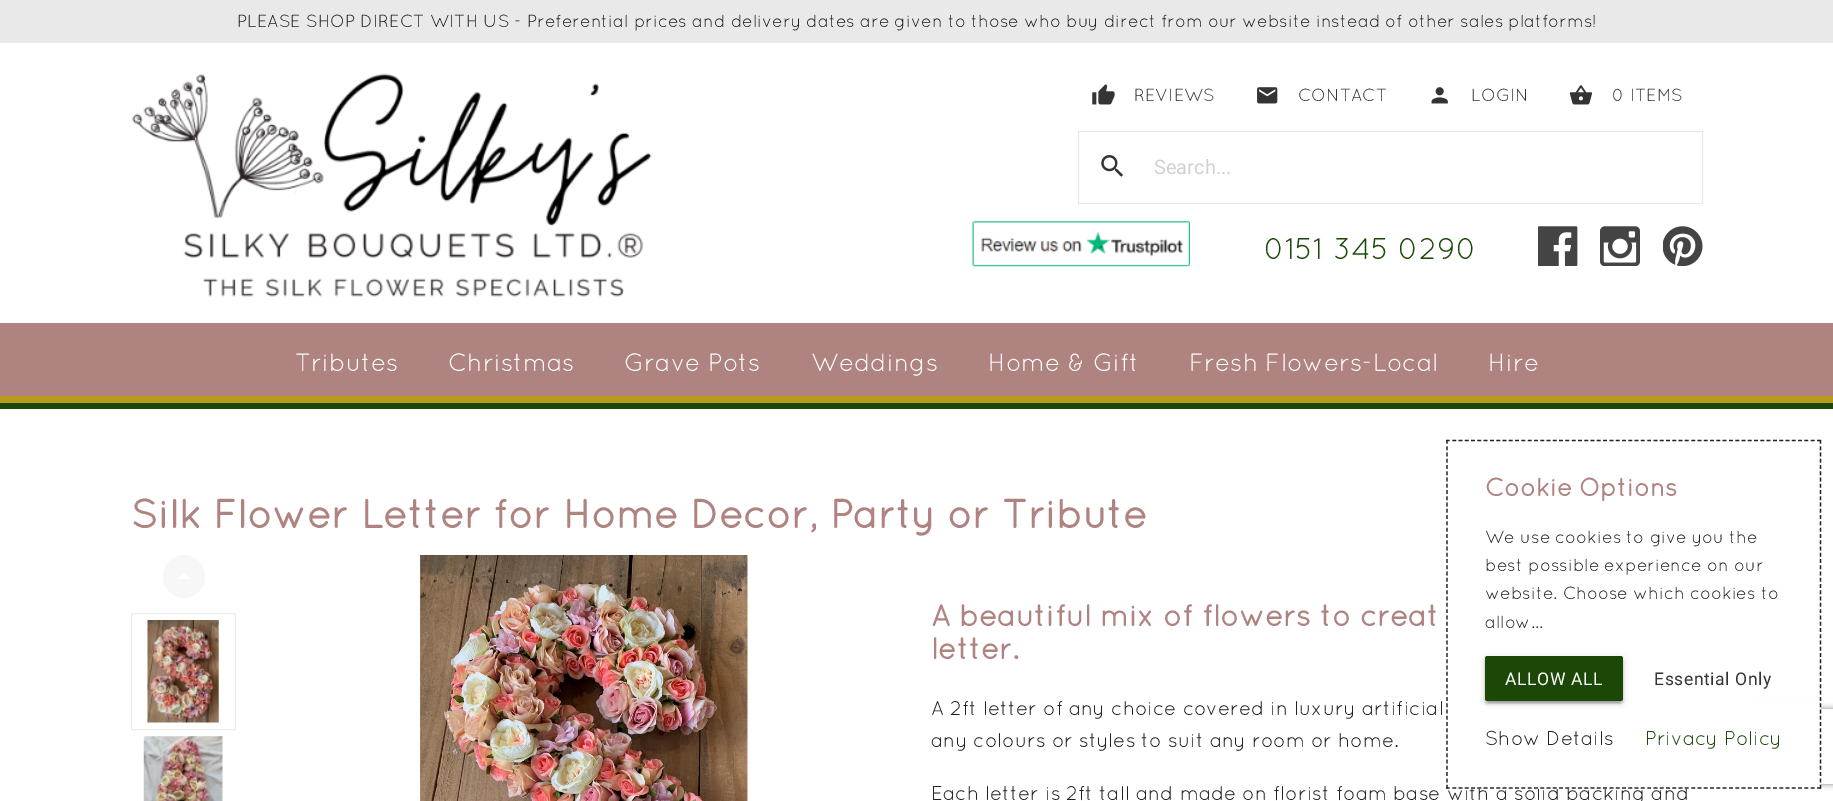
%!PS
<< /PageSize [1833 801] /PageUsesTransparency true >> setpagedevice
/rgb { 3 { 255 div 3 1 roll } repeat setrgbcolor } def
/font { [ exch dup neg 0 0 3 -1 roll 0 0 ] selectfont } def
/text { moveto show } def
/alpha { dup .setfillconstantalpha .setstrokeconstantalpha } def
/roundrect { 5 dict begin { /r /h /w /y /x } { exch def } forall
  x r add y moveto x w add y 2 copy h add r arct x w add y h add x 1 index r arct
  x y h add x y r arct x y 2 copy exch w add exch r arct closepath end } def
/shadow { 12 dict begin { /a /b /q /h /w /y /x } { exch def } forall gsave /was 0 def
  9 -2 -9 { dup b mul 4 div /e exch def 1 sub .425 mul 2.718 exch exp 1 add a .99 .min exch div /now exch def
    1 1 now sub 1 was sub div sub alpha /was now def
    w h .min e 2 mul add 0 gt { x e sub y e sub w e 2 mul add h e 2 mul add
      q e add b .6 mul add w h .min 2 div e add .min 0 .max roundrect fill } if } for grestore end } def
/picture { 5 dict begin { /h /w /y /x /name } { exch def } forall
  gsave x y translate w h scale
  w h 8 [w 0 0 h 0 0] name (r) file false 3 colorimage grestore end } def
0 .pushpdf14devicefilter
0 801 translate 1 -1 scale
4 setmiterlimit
255 255 255 rgb
0 0 1833 801 rectfill
233 233 233 rgb
0 0 1833 43 rectfill
(img_01.rgb) 132 73 520 224 picture
(img_02.rgb) 1092 84 23 21 picture
(img_03.rgb) 1257 87 21 17 picture
(img_04.rgb) 1431 87 17 17 picture
(img_05.rgb) 1569 85 24 20 picture
1078.5 131.5 624 72 rectstroke
(img_06.rgb) 1101 155 22 22 picture
(img_07.rgb) 972 221 218 46 picture
(img_08.rgb) 1538 226 40 40 picture
(img_09.rgb) 1600 226 40 40 picture
(img_10.rgb) 1663 226 40 40 picture
27 71 7 rgb
0 403 1833 6 rectfill
174 131 128 rgb
0 323 1833 73 rectfill
184 155 28 rgb
0 396 1833 7 rectfill
33 33 33 rgb
1.2 setlinewidth
[3.75 2.54] 0 setdash
1446 440.5 moveto 375 0 rlineto stroke
247 247 247 rgb
163 555 42 43 21 roundrect fill
255 255 255 rgb
177.5 579 moveto 6.5 -6.5 rlineto 6 6.5 rlineto closepath fill
238 238 238 rgb
1 setlinewidth
[] 0 setdash
131.5 613.5 104 116 rectstroke
(img_11.rgb) 147 620 72 103 picture
(img_12.rgb) 143 736 80 65 picture
(img_13.rgb) 420 555 328 246 picture
gsave
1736 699 moveto 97 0 rlineto 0 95 rlineto -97 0 rlineto closepath 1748.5 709 moveto 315 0 rlineto 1.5 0 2.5 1 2.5 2.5 rcurveto 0 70 rlineto 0 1.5 -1 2.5 -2.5 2.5 rcurveto -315 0 rlineto -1.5 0 -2.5 -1 -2.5 -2.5 rcurveto 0 -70 rlineto 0 -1.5 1 -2.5 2.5 -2.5 rcurveto closepath eoclip newpath
128 128 128 rgb
1746 709 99 75 2.5 3 1 shadow
grestore
/Quicksand-Regular 17.5 font
33 33 33 rgb
(PLEASE SHOP DIRECT WITH US - Preferential prices and delivery dates are given to those who buy direct from our website instead of other sales platforms!) 237 27 text
52 52 52 rgb
(REVIEWS) 1134 101 text
(CONTACT) 1298 101 text
(LOGIN) 1471 101 text
(0 ITEMS) 1612 101 text
/Roboto-Regular 20 font
209 209 209 rgb
(Search...) 1154 174 text
/Quicksand-Regular 30 font
27 71 7 rgb
(0151 345 0290) 1264 259 text
/Quicksand-Regular 25 font
255 255 255 rgb
(Tributes) 295 371 text
(Christmas) 448 371 text
(Grave Pots) 624 371 text
(Weddings) 811 371 text
(Home & Gift) 988 371 text
(Fresh Flowers-Local) 1189 371 text
(Hire) 1488 371 text
/Quicksand-Bold 25 font
174 131 128 rgb
(Cookie Options) 1485 496 text
/Quicksand-Regular 17.5 font
33 33 33 rgb
(We use cookies to give you the) 1485 543 text
(best possible experience on our) 1485 571 text
(website. Choose which cookies to) 1485 599 text
(allow...) 1485 628 text
/Roboto-Regular 17.5 font
52 52 52 rgb
1654 685 moveto 0.6 0 (Essential Only) ashow
/Quicksand-Bold 40 font
174 131 128 rgb
(Silk Flower Letter for Home Decor, Party or Tribute) 131 528 text
/Quicksand-Bold 30 font
(A beautiful mix of flowers to creat) 931 626 text
(letter.) 931 659 text
/Quicksand-Regular 20 font
33 33 33 rgb
(A 2ft letter of any choice covered in luxury artificial) 931 715 text
(any colours or styles to suit any room or home.) 931 747 text
(Each letter is 2ft tall and made on florist foam base with a solid backing and) 931 800 text
255 255 255 rgb
1465 703 356 86 rectfill
33 33 33 rgb
(Show Details) 1485 745 text
27 71 7 rgb
(Privacy Policy) 1645 745 text
0 0 0 rgb
1485 659 138 45 2.5 1 0.14 shadow
1488 663 132 40 0 0.5 0.12 shadow
1485 658 138 45 2.5 3 0.2 shadow
27 71 7 rgb
1485 656 138 45 2.5 roundrect fill
/Roboto-Regular 17.5 font
255 255 255 rgb
1505 685 moveto 0.6 0 (ALLOW ALL) ashow
33 33 33 rgb
1.2 setlinewidth
[3.75 2.52] 0 setdash
1820.5 440 moveto 0 349 rlineto stroke
[3.75 2.54] 0 setdash
1446 788 moveto 375 0 rlineto stroke
[3.75 2.52] 0 setdash
1447 440 moveto 0 349 rlineto stroke
.poppdf14devicefilter showpage
